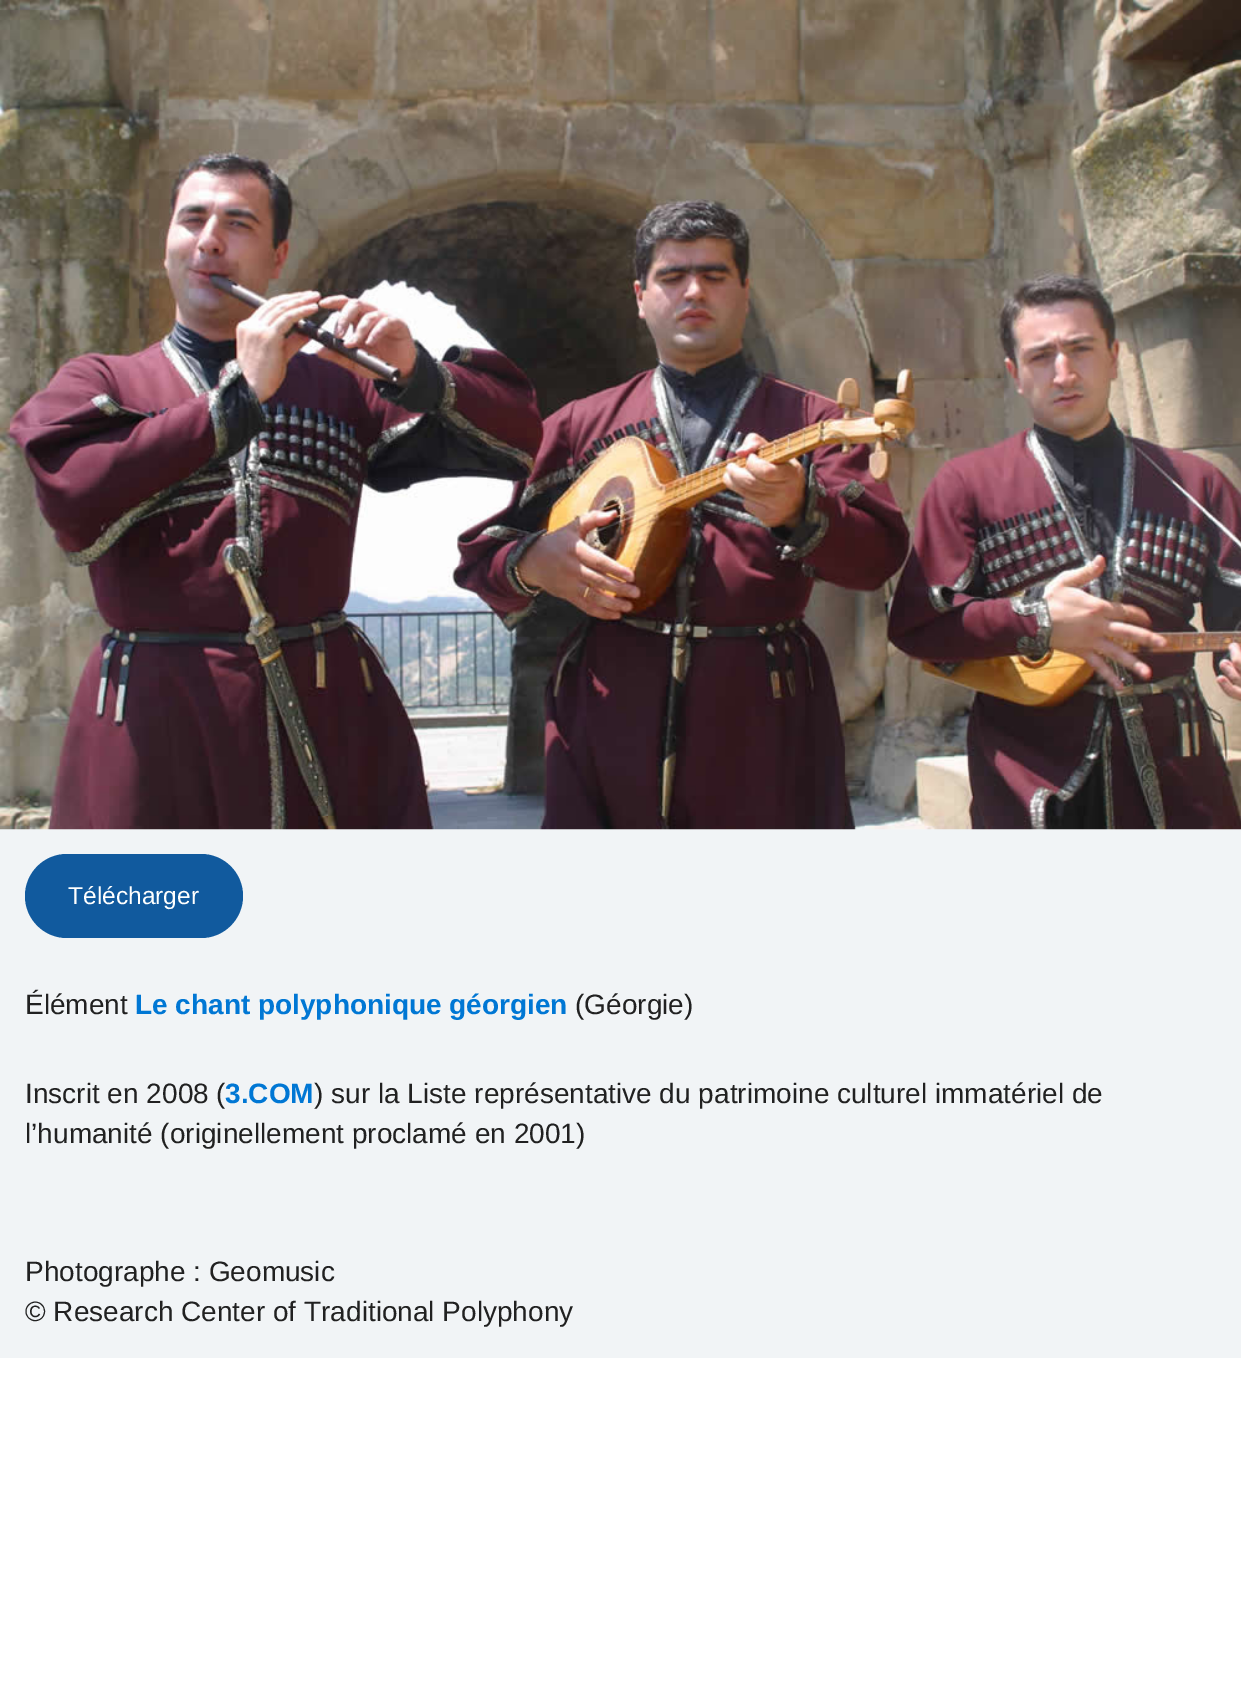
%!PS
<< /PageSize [1241 1703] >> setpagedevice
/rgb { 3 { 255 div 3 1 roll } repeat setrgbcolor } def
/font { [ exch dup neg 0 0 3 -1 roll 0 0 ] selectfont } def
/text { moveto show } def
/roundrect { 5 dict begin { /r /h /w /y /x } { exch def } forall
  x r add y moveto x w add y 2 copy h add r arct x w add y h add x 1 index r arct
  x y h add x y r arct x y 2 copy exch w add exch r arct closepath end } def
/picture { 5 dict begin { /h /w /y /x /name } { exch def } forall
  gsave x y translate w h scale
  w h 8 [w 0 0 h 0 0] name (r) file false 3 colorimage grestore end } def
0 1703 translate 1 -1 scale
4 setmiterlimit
255 255 255 rgb
0 0 1241 1703 rectfill
241 244 246 rgb
0 829 1241 529 rectfill
(img_01.rgb) 0 0 1241 830 picture
17 90 158 rgb
25 854 218 84 42 roundrect fill
/LiberationSans-Regular 24.5 font
255 255 255 rgb
(Télécharger) 68 904 text
/LiberationSans-Regular 28 font
33 33 33 rgb
(Élément) 25 1014 text
/LiberationSans-Bold 28 font
0 119 212 rgb
(Le chant polyphonique géorgien) 135 1014 text
/LiberationSans-Regular 28 font
33 33 33 rgb
(\(Géorgie\)) 575 1014 text
(Inscrit en 2008 \() 25 1103 text
/LiberationSans-Bold 28 font
0 119 212 rgb
(3.COM) 225 1103 text
/LiberationSans-Regular 28 font
33 33 33 rgb
(\) sur la Liste représentative du patrimoine culturel immatériel de) 314 1103 text
(l’humanité \(originellement proclamé en 2001\)) 25 1143 text
(Photographe : Geomusic) 25 1281 text
(© Research Center of Traditional Polyphony) 25 1321 text
showpage
